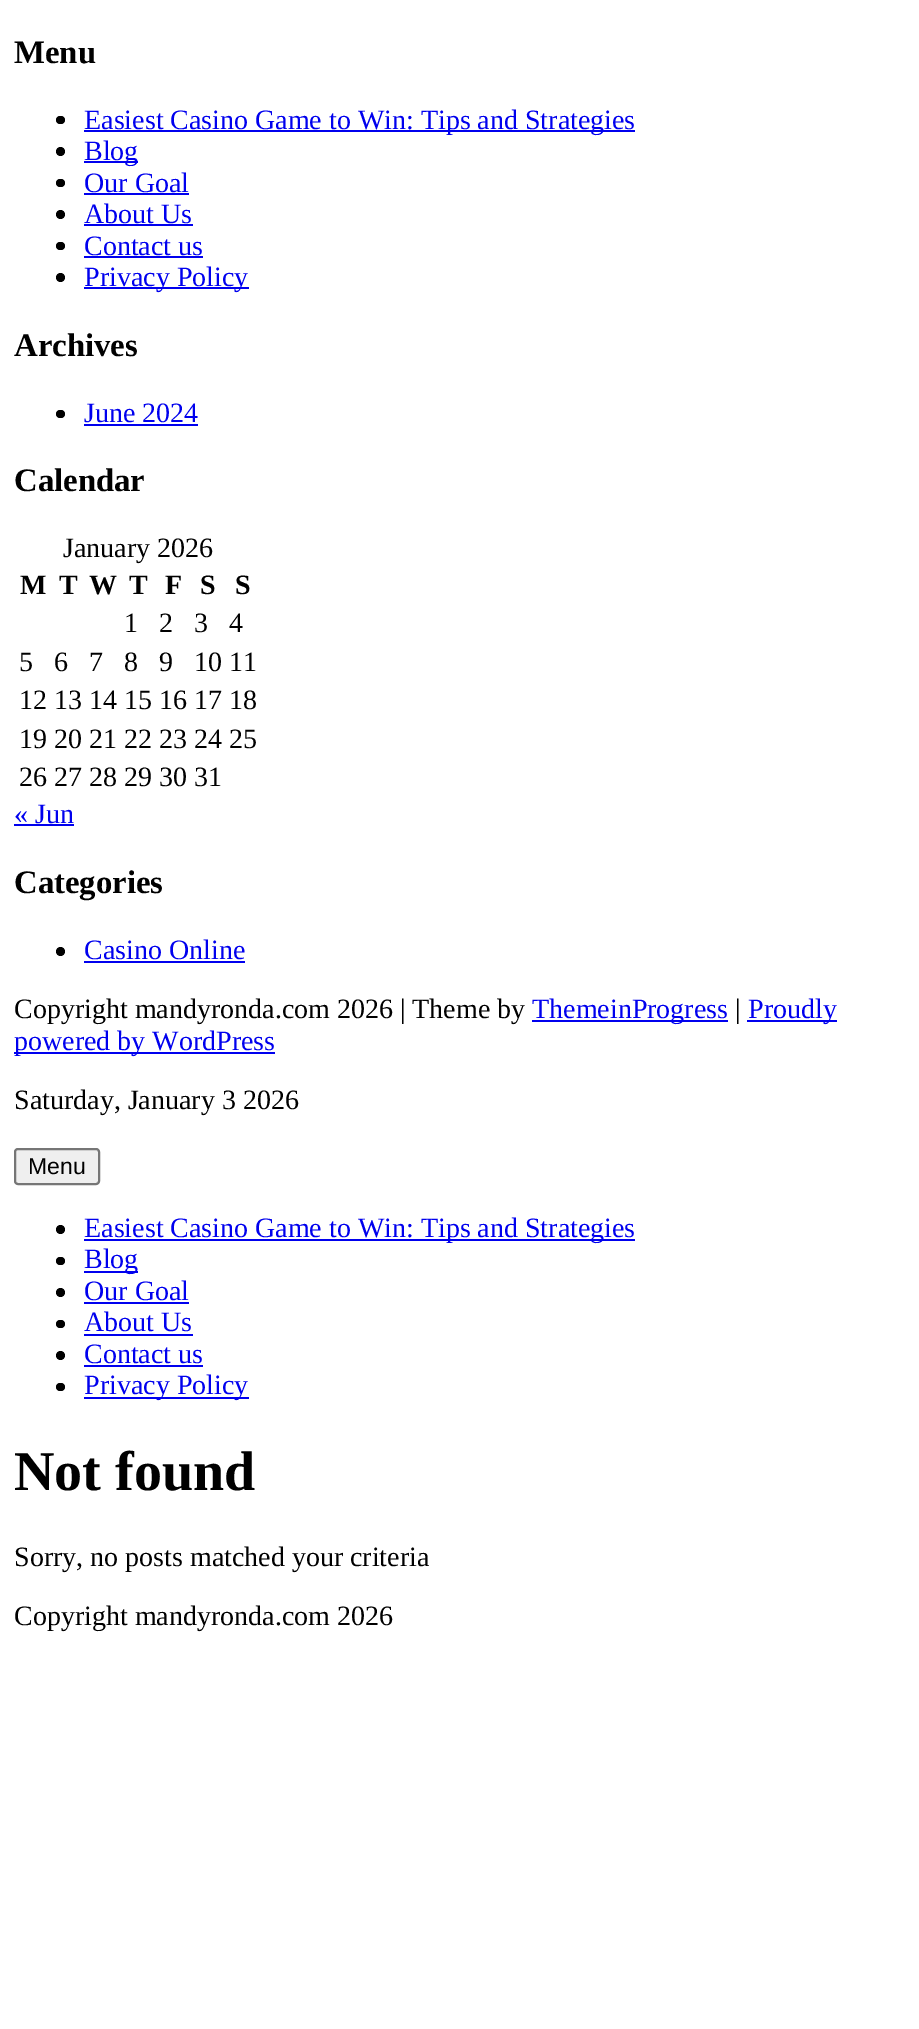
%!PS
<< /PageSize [919 2029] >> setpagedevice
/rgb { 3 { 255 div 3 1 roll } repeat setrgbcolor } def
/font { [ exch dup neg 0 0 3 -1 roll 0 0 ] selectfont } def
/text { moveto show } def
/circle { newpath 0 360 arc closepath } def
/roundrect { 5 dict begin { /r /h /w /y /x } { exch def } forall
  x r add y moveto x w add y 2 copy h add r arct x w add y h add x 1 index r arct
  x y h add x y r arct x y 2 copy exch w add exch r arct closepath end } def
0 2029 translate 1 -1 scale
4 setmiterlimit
255 255 255 rgb
0 0 919 2029 rectfill
0 0 0 rgb
56 116 9 8 4 roundrect fill
0 0 238 rgb
84 130 551 2 rectfill
0 0 0 rgb
60.5 151.5 4.5 circle fill
0 0 238 rgb
84 161 54 2 rectfill
0 0 0 rgb
56 179 9 8 4 roundrect fill
0 0 238 rgb
84 193 105 2 rectfill
0 0 0 rgb
60.5 214.5 4.5 circle fill
0 0 238 rgb
84 224 109 2 rectfill
0 0 0 rgb
56 242 9 8 4 roundrect fill
0 0 238 rgb
84 256 119 2 rectfill
0 0 0 rgb
60.5 277.5 4.5 circle fill
0 0 238 rgb
84 287 165 2 rectfill
0 0 0 rgb
56 410 9 8 4 roundrect fill
0 0 238 rgb
84 424 114 2 rectfill
14 824 60 2 rectfill
0 0 0 rgb
60.5 951.5 4.5 circle fill
0 0 238 rgb
84 961 161 2 rectfill
532 1020 196 2 rectfill
747 1020 90 2 rectfill
14 1052 261 2 rectfill
239 239 239 rgb
15 1149 84 35 3 roundrect gsave fill grestore
118 118 118 rgb
2 setlinewidth
stroke
0 0 0 rgb
60.5 1229.5 4.5 circle fill
0 0 238 rgb
84 1239 551 2 rectfill
0 0 0 rgb
56 1257 9 8 4 roundrect fill
0 0 238 rgb
84 1271 54 2 rectfill
0 0 0 rgb
60.5 1292.5 4.5 circle fill
0 0 238 rgb
84 1302 105 2 rectfill
0 0 0 rgb
56 1320 9 8 4 roundrect fill
0 0 238 rgb
84 1334 109 2 rectfill
0 0 0 rgb
60.5 1355.5 4.5 circle fill
0 0 238 rgb
84 1365 119 2 rectfill
0 0 0 rgb
56 1383 9 8 4 roundrect fill
0 0 238 rgb
84 1397 165 2 rectfill
/LiberationSerif-Bold 32.75 font
0 0 0 rgb
(Menu) 14 63 text
/LiberationSerif-Regular 28 font
0 0 238 rgb
(Easiest Casino Game to Win: Tips and Strategies) 84 129 text
(Blog) 84 160 text
(Our Goal) 84 192 text
(About Us) 84 223 text
(Contact us) 84 255 text
(Privacy Policy) 84 286 text
/LiberationSerif-Bold 32.75 font
0 0 0 rgb
(Archives) 14 356 text
/LiberationSerif-Regular 28 font
0 0 238 rgb
(June 2024) 84 422 text
/LiberationSerif-Bold 32.75 font
0 0 0 rgb
(Calendar) 14 491 text
/LiberationSerif-Regular 28 font
(January 2026) 63 557 text
/LiberationSerif-Bold 28 font
(M) 20 594 text
(T) 59 594 text
(W) 89 594 text
(T) 129 594 text
(F) 165 594 text
(S) 200 594 text
(S) 235 594 text
/LiberationSerif-Regular 28 font
(1) 124 632 text
(2) 159 632 text
(3) 194 632 text
(4) 229 632 text
(5) 19 671 text
(6) 54 671 text
(7) 89 671 text
(8) 124 671 text
(9) 159 671 text
(10 11) 194 671 text
(12 13 14 15 16 17 18) 19 709 text
(19 20 21 22 23 24 25) 19 748 text
(26 27 28 29 30 31) 19 786 text
0 0 238 rgb
(« Jun) 14 823 text
/LiberationSerif-Bold 32.75 font
0 0 0 rgb
(Categories) 14 893 text
/LiberationSerif-Regular 28 font
0 0 238 rgb
(Casino Online) 84 959 text
0 0 0 rgb
(Copyright mandyronda.com 2026 | Theme by) 14 1018 text
0 0 238 rgb
(ThemeinProgress) 532 1018 text
0 0 0 rgb
(|) 735 1018 text
0 0 238 rgb
(Proudly) 748 1018 text
(powered by WordPress) 14 1050 text
0 0 0 rgb
(Saturday, January 3 2026) 14 1109 text
/LiberationSans-Regular 23 font
(Menu) 28 1174 text
/LiberationSerif-Regular 28 font
0 0 238 rgb
(Easiest Casino Game to Win: Tips and Strategies) 84 1237 text
(Blog) 84 1268 text
(Our Goal) 84 1300 text
(About Us) 84 1331 text
(Contact us) 84 1363 text
(Privacy Policy) 84 1394 text
/LiberationSerif-Bold 56 font
0 0 0 rgb
(Not found) 14 1490 text
/LiberationSerif-Regular 28 font
(Sorry, no posts matched your criteria) 14 1566 text
(Copyright mandyronda.com 2026) 14 1625 text
showpage
